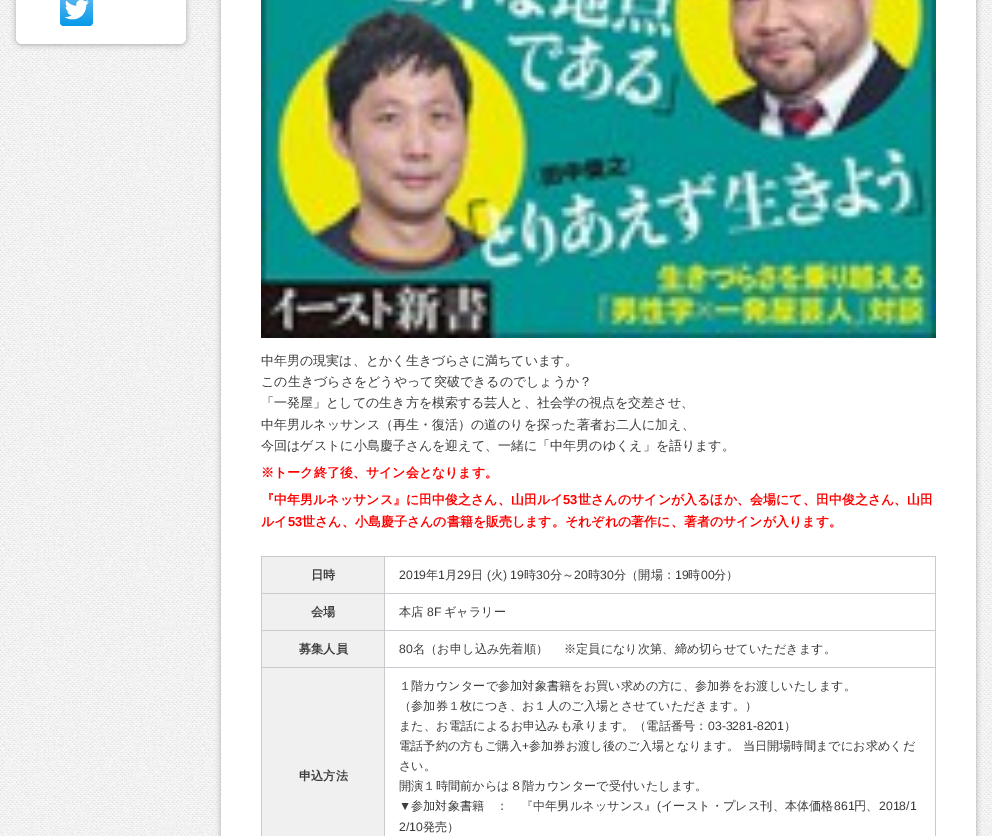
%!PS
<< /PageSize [992 836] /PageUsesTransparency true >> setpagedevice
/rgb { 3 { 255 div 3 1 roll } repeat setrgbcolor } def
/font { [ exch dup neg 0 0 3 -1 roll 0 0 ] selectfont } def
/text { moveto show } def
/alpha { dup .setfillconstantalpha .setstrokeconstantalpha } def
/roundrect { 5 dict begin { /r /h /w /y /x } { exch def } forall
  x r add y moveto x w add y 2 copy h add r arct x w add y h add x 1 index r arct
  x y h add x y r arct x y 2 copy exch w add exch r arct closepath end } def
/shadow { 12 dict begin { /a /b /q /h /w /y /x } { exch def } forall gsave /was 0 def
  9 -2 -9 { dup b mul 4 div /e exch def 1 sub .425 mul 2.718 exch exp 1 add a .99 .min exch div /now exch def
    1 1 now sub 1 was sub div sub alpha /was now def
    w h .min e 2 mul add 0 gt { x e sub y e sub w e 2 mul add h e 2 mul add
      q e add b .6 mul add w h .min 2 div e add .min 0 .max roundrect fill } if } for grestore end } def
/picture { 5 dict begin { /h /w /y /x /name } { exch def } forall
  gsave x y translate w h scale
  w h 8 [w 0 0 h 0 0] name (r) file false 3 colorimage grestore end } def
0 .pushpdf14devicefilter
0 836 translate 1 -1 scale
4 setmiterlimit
255 255 255 rgb
0 0 992 836 rectfill
(img_01.rgb) 0 0 992 836 picture
0 0 0 rgb
16 -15 170 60 6 3 0.3 shadow
255 255 255 rgb
16 -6 170 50 6 roundrect fill
(img_02.rgb) 60 0 33 26 picture
0 0 0 rgb
221 -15 755 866 6 3 0.3 shadow
255 255 255 rgb
221 0 755 836 rectfill
(img_03.rgb) 261 0 675 338 picture
240 240 240 rgb
262 557 122 36 rectfill
200 202 207 rgb
261 556 675 1 rectfill
261 593 675 1 rectfill
261 630 675 1 rectfill
261 667 675 1 rectfill
384 667 1 169 rectfill
384 630 1 38 rectfill
384 593 1 38 rectfill
384 556 1 38 rectfill
261 667 1 169 rectfill
261 630 1 38 rectfill
261 593 1 38 rectfill
261 556 1 38 rectfill
935 667 1 169 rectfill
935 630 1 38 rectfill
935 593 1 38 rectfill
935 556 1 38 rectfill
240 240 240 rgb
262 594 122 36 rectfill
262 631 122 36 rectfill
262 668 122 168 rectfill
/WenQuanYiZenHei-Medium 13 font
60 60 60 rgb
(中年男の現実は、とかく生きづらさに満ちています。) 261 365 text
(この生きづらさをどうやって突破できるのでしょうか？) 261 386 text
(「一発屋」としての生き方を模索する芸人と、社会学の視点を交差させ、) 261 407 text
(中年男ルネッサンス（再生・復活）の道のりを探った著者お二人に加え、) 261 429 text
(今回はゲストに小島慶子さんを迎えて、一緒に「中年男のゆくえ」を語ります。) 261 450 text
/WenQuanYiZenHei-Bold 13 font
255 0 0 rgb
(※トーク終了後、サイン会となります。) 261 477 text
(『中年男ルネッサンス』に田中俊之さん、山田ルイ) 261 504 text
/LiberationSans-Bold 13 font
(53) 563 504 text
/WenQuanYiZenHei-Bold 13 font
(世さんのサインが入るほか、会場にて、田中俊之さん、山田) 578 504 text
(ルイ) 261 526 text
/LiberationSans-Bold 13 font
(53) 288 526 text
/WenQuanYiZenHei-Bold 13 font
(世さん、小島慶子さんの書籍を販売します。それぞれの著作に、著者のサインが入ります。) 302 526 text
/WenQuanYiZenHei-Bold 12.2 font
60 60 60 rgb
(日時) 311 579 text
/LiberationSans-Regular 12.2 font
(2019) 399 579 text
/WenQuanYiZenHei-Medium 12.2 font
(年) 426 579 text
/LiberationSans-Regular 12.2 font
(1) 438 579 text
/WenQuanYiZenHei-Medium 12.2 font
(月) 445 579 text
/LiberationSans-Regular 12.2 font
(29) 457 579 text
/WenQuanYiZenHei-Medium 12.2 font
(日) 471 579 text
/LiberationSans-Regular 12.2 font
(\() 487 579 text
/WenQuanYiZenHei-Medium 12.2 font
(火) 491 579 text
/LiberationSans-Regular 12.2 font
(\) 19) 503 579 text
/WenQuanYiZenHei-Medium 12.2 font
(時) 524 579 text
/LiberationSans-Regular 12.2 font
(30) 536 579 text
/WenQuanYiZenHei-Medium 12.2 font
(分～) 550 579 text
/LiberationSans-Regular 12.2 font
(20) 574 579 text
/WenQuanYiZenHei-Medium 12.2 font
(時) 588 579 text
/LiberationSans-Regular 12.2 font
(30) 600 579 text
/WenQuanYiZenHei-Medium 12.2 font
(分（開場：) 614 579 text
/LiberationSans-Regular 12.2 font
(19) 675 579 text
/WenQuanYiZenHei-Medium 12.2 font
(時) 688 579 text
/LiberationSans-Regular 12.2 font
(00) 701 579 text
/WenQuanYiZenHei-Medium 12.2 font
(分）) 714 579 text
/WenQuanYiZenHei-Bold 12.2 font
(会場) 311 616 text
/WenQuanYiZenHei-Medium 12.2 font
(本店) 399 616 text
/LiberationSans-Regular 12.2 font
(8F) 427 616 text
/WenQuanYiZenHei-Medium 12.2 font
(ギャラリー) 444 616 text
/WenQuanYiZenHei-Bold 12.2 font
(募集人員) 299 653 text
/LiberationSans-Regular 12.2 font
(80) 399 653 text
/WenQuanYiZenHei-Medium 12.2 font
(名（お申し込み先着順） 　※定員になり次第、締め切らせていただきます。) 413 653 text
/WenQuanYiZenHei-Bold 12.2 font
(申込方法) 299 780 text
/WenQuanYiZenHei-Medium 12.2 font
(１階カウンターで参加対象書籍をお買い求めの方に、参加券をお渡しいたします。) 399 690 text
(（参加券１枚につき、お１人のご入場とさせていただきます。）) 399 710 text
(また、お電話によるお申込みも承ります。（電話番号：) 399 730 text
/LiberationSans-Regular 12.2 font
(03-3281-8201) 708 730 text
/WenQuanYiZenHei-Medium 12.2 font
(）) 784 730 text
(電話予約の方もご購入) 399 750 text
/LiberationSans-Regular 12.2 font
(+) 522 750 text
/WenQuanYiZenHei-Medium 12.2 font
(参加券お渡し後のご入場となります。 当日開場時間までにお求めくだ) 529 750 text
(さい。) 399 770 text
(開演１時間前からは８階カウンターで受付いたします。) 399 790 text
/LiberationSans-Regular 12.2 font
(▼) 399 810 text
/WenQuanYiZenHei-Medium 12.2 font
(参加対象書籍　：　『中年男ルネッサンス』) 411 810 text
/LiberationSans-Regular 12.2 font
(\() 657 810 text
/WenQuanYiZenHei-Medium 12.2 font
(イースト・プレス刊、本体価格) 661 810 text
/LiberationSans-Regular 12.2 font
(861) 834 810 text
/WenQuanYiZenHei-Medium 12.2 font
(円、) 854 810 text
/LiberationSans-Regular 12.2 font
(2018/1) 879 810 text
(2/10) 399 831 text
/WenQuanYiZenHei-Medium 12.2 font
(発売）) 423 831 text
.poppdf14devicefilter showpage
